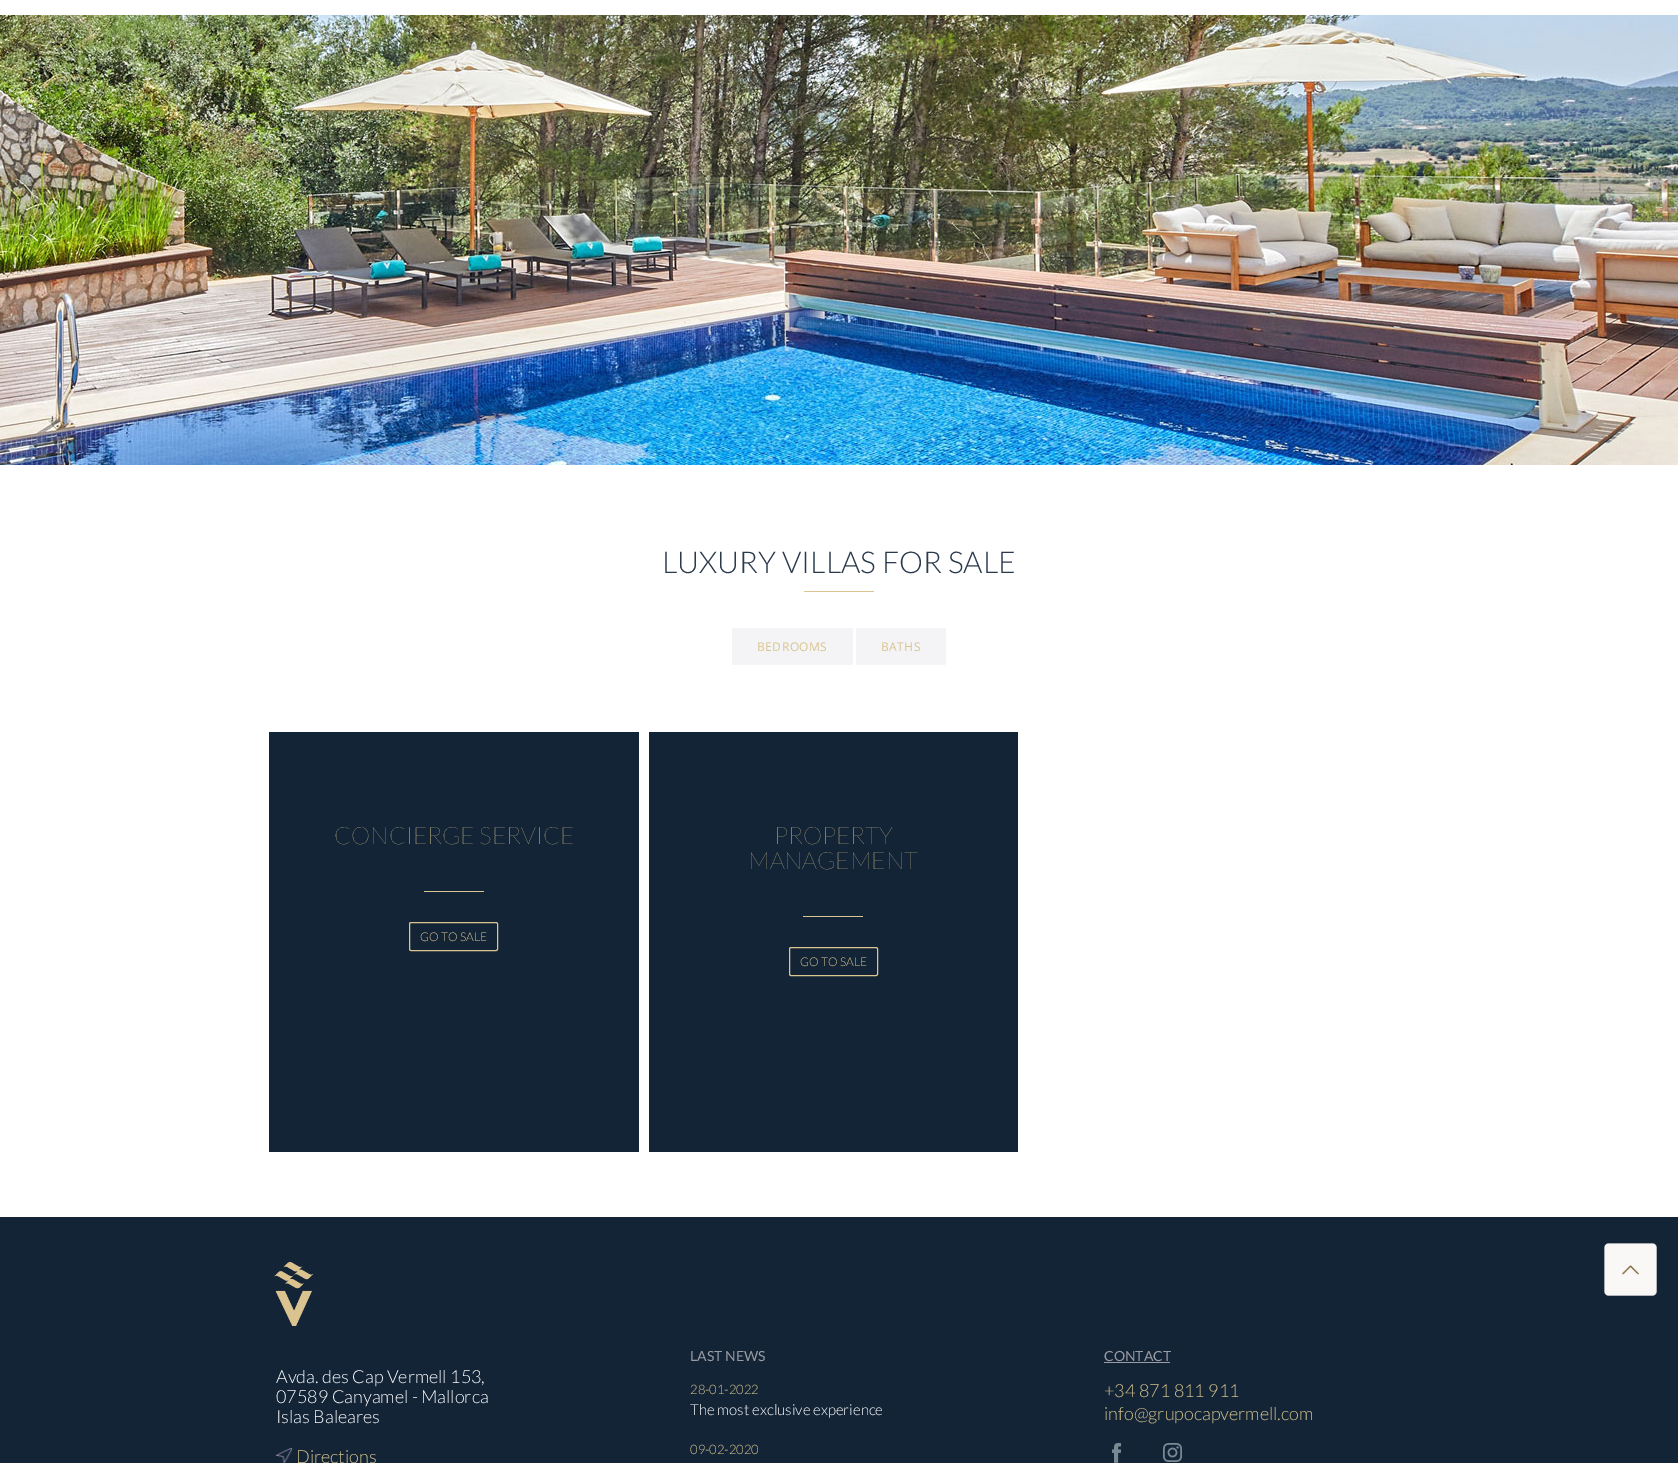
%!PS
<< /PageSize [1678 1463] >> setpagedevice
/rgb { 3 { 255 div 3 1 roll } repeat setrgbcolor } def
/font { [ exch dup neg 0 0 3 -1 roll 0 0 ] selectfont } def
/text { moveto show } def
/roundrect { 5 dict begin { /r /h /w /y /x } { exch def } forall
  x r add y moveto x w add y 2 copy h add r arct x w add y h add x 1 index r arct
  x y h add x y r arct x y 2 copy exch w add exch r arct closepath end } def
/picture { 5 dict begin { /h /w /y /x /name } { exch def } forall
  gsave x y translate w h scale
  w h 8 [w 0 0 h 0 0] name (r) file false 3 colorimage grestore end } def
0 1463 translate 1 -1 scale
4 setmiterlimit
255 255 255 rgb
0 0 1678 1463 rectfill
(img_01.rgb) 0 15 1678 450 picture
218 196 143 rgb
804 591 70 1 rectfill
244 243 246 rgb
732 628 121 37 2 roundrect fill
856 628 90 37 2 roundrect fill
20 36 55 rgb
269 732 370 420 rectfill
218 196 143 rgb
424 891 60 1 rectfill
217 197 142 rgb
409.5 922.5 88 28 1.5 roundrect stroke
20 36 55 rgb
649 732 369 420 rectfill
218 196 143 rgb
803 916 60 1 rectfill
217 197 142 rgb
789.5 947.5 88 28 1.5 roundrect stroke
20 36 55 rgb
0 1217 1678 246 rectfill
(img_02.rgb) 1604 1243 53 53 picture
(img_03.rgb) 274 1262 40 64 picture
(img_04.rgb) 276 1448 17 15 picture
153 156 163 rgb
1104 1362 66 1 rectfill
(img_05.rgb) 1112 1443 9 20 picture
(img_06.rgb) 1163 1443 19 19 picture
/Lato-Light 30 font
42 57 76 rgb
(LUXURY VILLAS FOR SALE) 662 573 text
/OpenSans-Regular 12 font
217 197 142 rgb
757 651 moveto 0.5 0 (BEDROOMS) ashow
881 651 moveto 0.5 0 (BATHS) ashow
/Lato-Thin 24 font
(CONCIERGE SERVICE) 334 844 text
/Lato-Light 12 font
(GO TO SALE) 420 941 text
/Lato-Thin 24 font
(PROPERTY) 774 844 text
(MANAGEMENT) 748 869 text
/Lato-Light 12 font
(GO TO SALE) 800 966 text
/Lato-Light 18 font
255 255 255 rgb
(Avda. des Cap Vermell 153,) 276 1383 text
(07589 Canyamel - Mallorca) 276 1403 text
(Islas Baleares) 276 1423 text
217 197 142 rgb
(Directions) 296 1463 text
/Lato-Regular 14 font
153 156 163 rgb
(LAST NEWS) 690 1361 text
/Lato-Light 13 font
217 197 142 rgb
(28-01-2022) 690 1394 text
/Lato-Light 15 font
255 255 255 rgb
(The most exclusive experience) 690 1415 text
/Lato-Light 13 font
217 197 142 rgb
(09-02-2020) 690 1454 text
/Lato-Regular 14 font
153 156 163 rgb
(CONTACT) 1104 1361 text
/Lato-Light 18 font
217 197 142 rgb
(+34 871 811 911) 1104 1397 text
(info@grupocapvermell.com) 1104 1420 text
showpage
